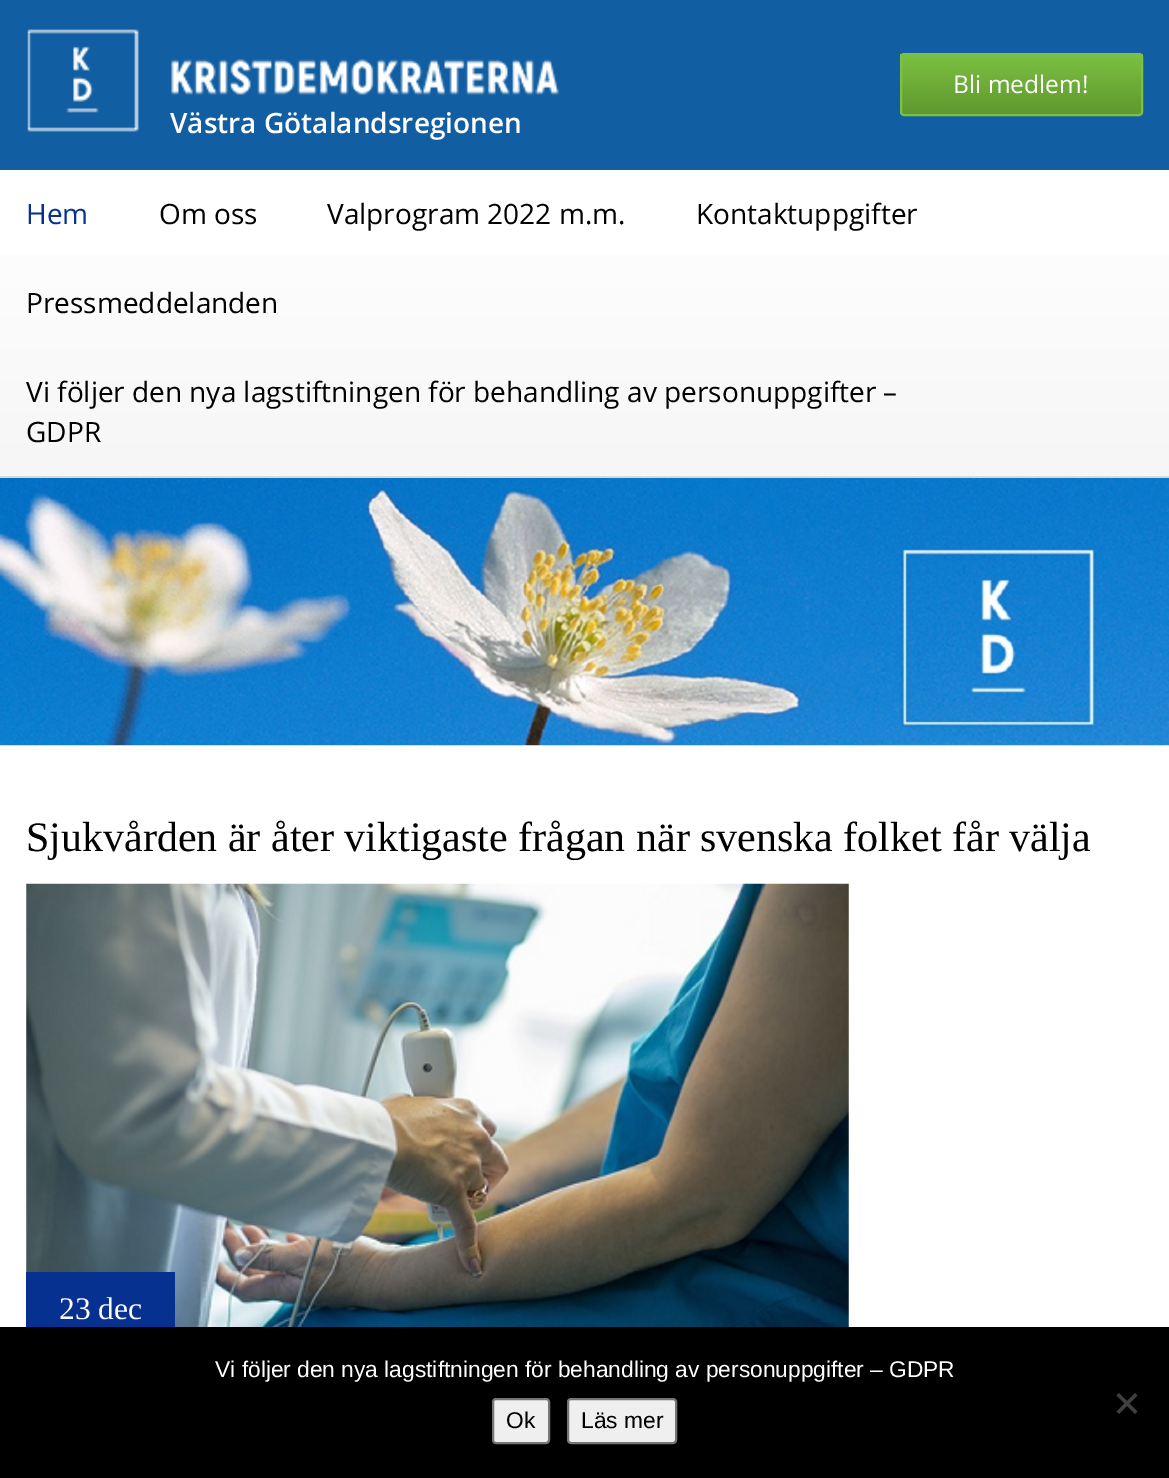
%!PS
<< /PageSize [1169 1478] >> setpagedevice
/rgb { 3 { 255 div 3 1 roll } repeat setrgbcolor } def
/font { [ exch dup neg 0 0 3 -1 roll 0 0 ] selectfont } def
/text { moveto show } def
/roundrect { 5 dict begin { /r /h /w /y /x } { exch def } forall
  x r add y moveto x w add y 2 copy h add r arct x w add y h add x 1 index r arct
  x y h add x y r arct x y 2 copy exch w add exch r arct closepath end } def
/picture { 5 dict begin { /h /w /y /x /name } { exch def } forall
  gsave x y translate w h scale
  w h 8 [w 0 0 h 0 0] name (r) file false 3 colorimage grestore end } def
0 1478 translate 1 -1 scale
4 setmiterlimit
255 255 255 rgb
0 0 1169 1478 rectfill
18 94 162 rgb
0 0 1169 170 rectfill
gsave
900 53 243 63 4 roundrect clip newpath
gsave 900 54 moveto 243 0 rlineto 0 60 rlineto -243 0 rlineto closepath clip newpath
<< /ShadingType 2 /ColorSpace /DeviceRGB /Coords [1021 54 1021 114] /Extend [true true] /Function << /FunctionType 2 /Domain [0 1] /C0 [0.486 0.757 0.259] /C1 [0.373 0.596 0.184] /N 1 >> >> shfill grestore
grestore
124 193 66 rgb
2 setlinewidth
901 54 241 61 3 roundrect stroke
(img_01.rgb) 27 29 532 103 picture
gsave 0 255 moveto 1169 0 rlineto 0 221 rlineto -1169 0 rlineto closepath clip newpath
<< /ShadingType 2 /ColorSpace /DeviceRGB /Coords [585 170 585 476] /Extend [true true] /Function << /FunctionType 2 /Domain [0 1] /C0 [1 1 1] /C1 [0.965 0.965 0.969] /N 1 >> >> shfill grestore
217 217 217 rgb
0 476 1169 2 rectfill
(img_02.rgb) 0 478 1169 268 picture
(img_03.rgb) 26 883 823 444 picture
7 49 145 rgb
26 1272 149 55 rectfill
0 0 0 rgb
0 1327 1169 151 rectfill
64 64 64 rgb
1135 1393 moveto 2.5 2.5 rlineto -18.5 18.5 rlineto -2.5 -2.5 rlineto closepath fill
1116.5 1395.5 moveto 2.5 -2.5 rlineto 18.5 18.5 rlineto -2.5 2.5 rlineto closepath fill
239 239 239 rgb
493 1399 56 44 3 roundrect gsave fill grestore
118 118 118 rgb
stroke
239 239 239 rgb
568 1399 108 44 3 roundrect gsave fill grestore
118 118 118 rgb
stroke
/OpenSans-Regular 24.5 font
255 255 255 rgb
(Bli medlem!) 953 93 text
/OpenSans-SemiBold 28 font
(Västra Götalandsregionen) 170 133 text
/OpenSans-Regular 28 font
7 49 145 rgb
(Hem) 26 224 text
0 0 0 rgb
(Om oss) 159 224 text
(Valprogram 2022 m.m.) 327 224 text
(Kontaktuppgifter) 696 224 text
(Pressmeddelanden) 26 313 text
(Vi följer den nya lagstiftningen för behandling av personuppgifter –) 26 402 text
(GDPR) 26 442 text
/LiberationSerif-Regular 42 font
(Sjukvården är åter viktigaste frågan när svenska folket får välja) 26 851 text
/LiberationSerif-Regular 31.5 font
255 255 255 rgb
(23 dec) 59 1319 text
/LiberationSans-Regular 22.75 font
(Vi följer den nya lagstiftningen för behandling av personuppgifter – GDPR) 215 1377 text
0 0 0 rgb
(Ok) 506 1428 text
(Läs mer) 581 1428 text
showpage
